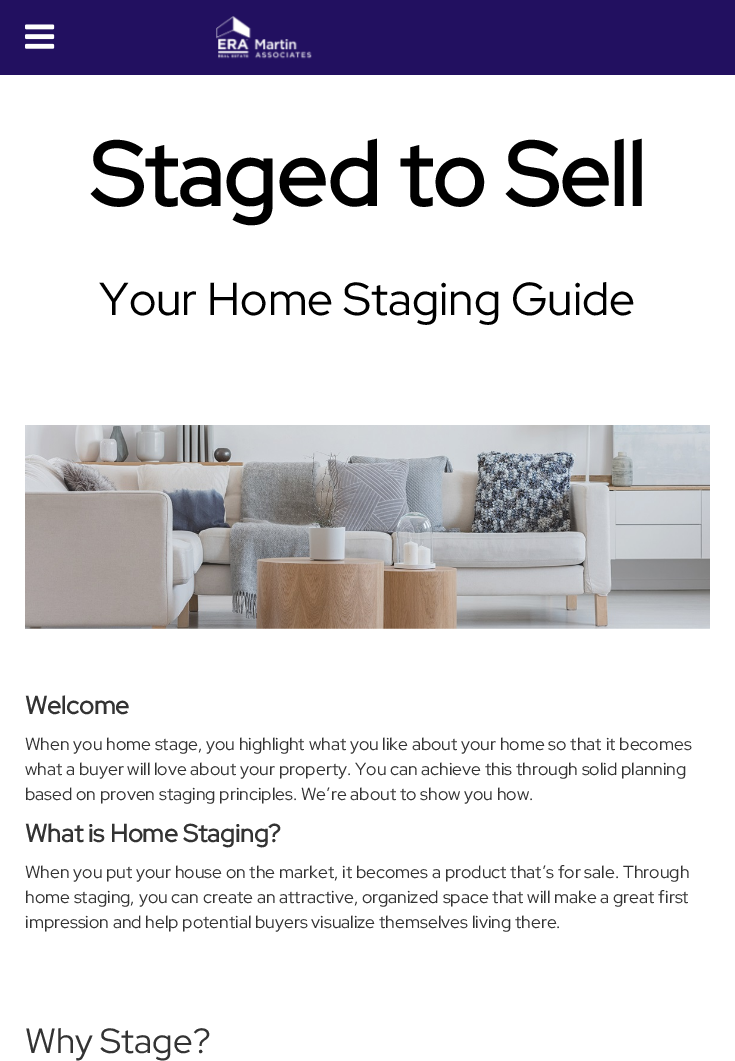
%!PS
<< /PageSize [735 1061] >> setpagedevice
/rgb { 3 { 255 div 3 1 roll } repeat setrgbcolor } def
/font { [ exch dup neg 0 0 3 -1 roll 0 0 ] selectfont } def
/text { moveto show } def
/picture { 5 dict begin { /h /w /y /x /name } { exch def } forall
  gsave x y translate w h scale
  w h 8 [w 0 0 h 0 0] name (r) file false 3 colorimage grestore end } def
0 1061 translate 1 -1 scale
4 setmiterlimit
255 255 255 rgb
0 0 735 1061 rectfill
34 16 96 rgb
0 0 735 75 rectfill
(img_01.rgb) 25 24 30 25 picture
(img_02.rgb) 216 16 96 43 picture
(img_03.rgb) 25 425 685 204 picture
/RedHatDisplay-Bold 90 font
0 0 0 rgb
(Staged to Sell) 90 206 text
/RedHatDisplay-Regular 46.25 font
(Your Home Staging Guide) 99 315 text
/RedHatDisplay-Bold 25 font
51 51 51 rgb
(Welcome) 25 714 text
/RedHatDisplay-Regular 17.5 font
(When you home stage, you highlight what you like about your home so that it becomes) 25 750 text
(what a buyer will love about your property. You can achieve this through solid planning) 25 775 text
(based on proven staging principles. We’re about to show you how.) 25 800 text
/RedHatDisplay-Bold 25 font
(What is Home Staging?) 25 842 text
/RedHatDisplay-Regular 17.5 font
(When you put your house on the market, it becomes a product that’s for sale. Through) 25 878 text
(home staging, you can create an attractive, organized space that will make a great first) 25 903 text
(impression and help potential buyers visualize themselves living there.) 25 928 text
/RedHatDisplay-Regular 35 font
(Why Stage?) 25 1053 text
showpage
